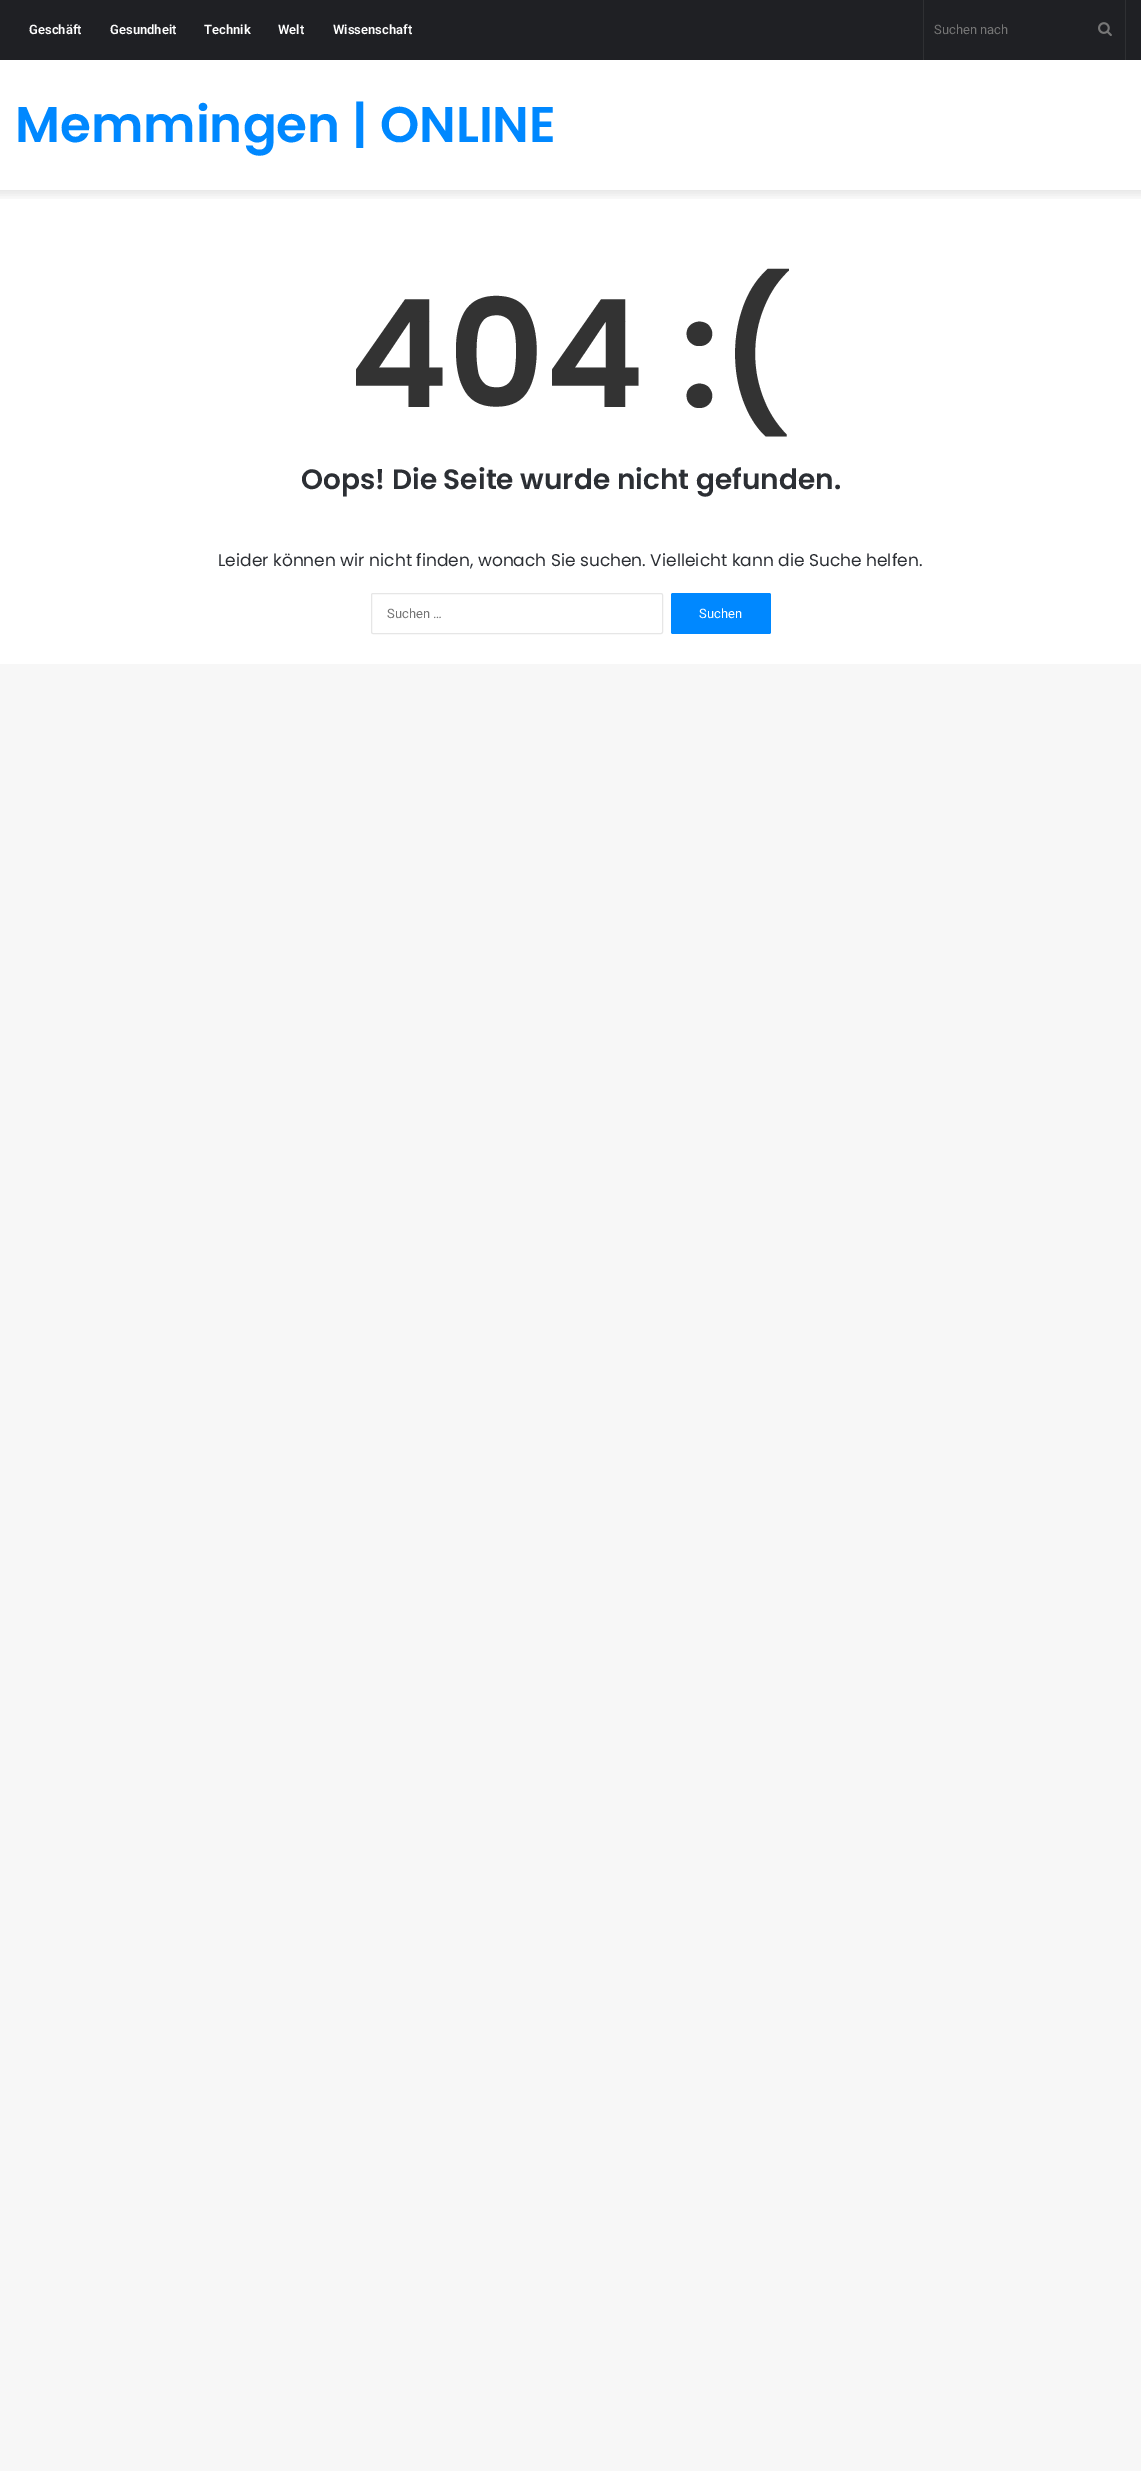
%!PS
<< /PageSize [1141 2471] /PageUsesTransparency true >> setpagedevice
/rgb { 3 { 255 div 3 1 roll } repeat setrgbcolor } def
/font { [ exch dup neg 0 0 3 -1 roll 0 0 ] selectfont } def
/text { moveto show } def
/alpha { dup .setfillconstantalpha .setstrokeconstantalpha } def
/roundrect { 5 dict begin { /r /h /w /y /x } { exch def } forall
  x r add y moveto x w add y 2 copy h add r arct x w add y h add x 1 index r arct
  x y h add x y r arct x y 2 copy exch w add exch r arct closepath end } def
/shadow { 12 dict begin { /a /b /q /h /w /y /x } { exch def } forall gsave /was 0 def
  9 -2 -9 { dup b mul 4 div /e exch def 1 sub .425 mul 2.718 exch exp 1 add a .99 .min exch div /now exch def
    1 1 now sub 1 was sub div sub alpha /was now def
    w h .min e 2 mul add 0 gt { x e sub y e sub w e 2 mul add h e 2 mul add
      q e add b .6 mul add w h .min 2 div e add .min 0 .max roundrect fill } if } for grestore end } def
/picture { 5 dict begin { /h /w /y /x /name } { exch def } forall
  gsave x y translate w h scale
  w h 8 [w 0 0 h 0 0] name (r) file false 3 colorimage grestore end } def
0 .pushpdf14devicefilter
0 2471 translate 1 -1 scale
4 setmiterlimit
247 247 247 rgb
0 0 1141 2471 rectfill
255 255 255 rgb
0 60 1141 604 rectfill
gsave
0 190 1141 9 rectclip
0 0 0 rgb
-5 -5 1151 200 0 5 0.1 shadow
grestore
31 32 36 rgb
0 0 1141 60 rectfill
47 48 51 rgb
1125 0 1 60 rectfill
923 0 1 60 rectfill
(img_01.rgb) 1098 22 14 14 picture
230 230 230 rgb
371.5 593.5 291 40 1.5 roundrect stroke
0 136 255 rgb
671 593 100 41 2 roundrect fill
/Roboto-SemiBold 13 font
255 255 255 rgb
(Geschäft) 29 34 text
(Gesundheit) 110 34 text
(Technik) 204 34 text
(Welt) 278 34 text
(Wissenschaft) 333 34 text
/Roboto-Regular 13 font
117 117 117 rgb
(Suchen nach) 934 34 text
/Poppins-SemiBold 50 font
0 136 255 rgb
(Memmingen | ONLINE) 15 142 text
/Poppins-SemiBold 150 font
51 51 51 rgb
(404 :\() 349 407 text
/Poppins-SemiBold 28 font
44 47 52 rgb
(Oops! Die Seite wurde nicht gefunden.) 301 489 text
/Poppins-Regular 17 font
(Leider können wir nicht finden, wonach Sie suchen. Vielleicht kann die Suche helfen.) 218 566 text
/Roboto-Regular 13 font
117 117 117 rgb
(Suchen …) 387 618 text
255 255 255 rgb
(Suchen) 699 618 text
.poppdf14devicefilter showpage
